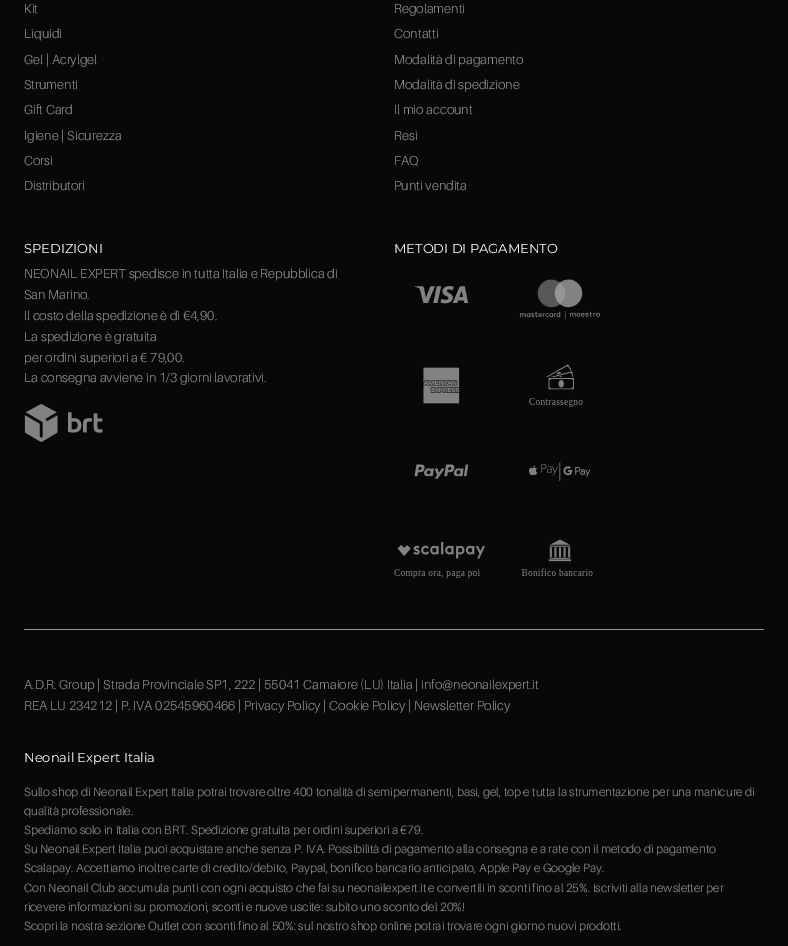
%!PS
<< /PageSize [788 946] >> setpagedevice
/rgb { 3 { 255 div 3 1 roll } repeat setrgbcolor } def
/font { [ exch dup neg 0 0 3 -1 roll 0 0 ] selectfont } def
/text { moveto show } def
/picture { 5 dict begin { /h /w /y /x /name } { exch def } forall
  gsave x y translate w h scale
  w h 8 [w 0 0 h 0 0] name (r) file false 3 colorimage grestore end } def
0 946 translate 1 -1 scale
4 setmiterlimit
8 8 9 rgb
0 0 788 946 rectfill
(img_01.rgb) 24 404 79 38 picture
(img_02.rgb) 394 279 206 299 picture
149 149 148 rgb
24 629 740 1 rectfill
/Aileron-Light 13 font
(Kit) 24 13 text
(Liquidi) 24 38 text
(Gel | Acrylgel) 24 64 text
(Strumenti) 24 89 text
(Gift Card) 24 114 text
(Igiene | Sicurezza) 24 140 text
(Corsi) 24 165 text
(Distributori) 24 190 text
(Regolamenti) 394 13 text
(Contatti) 394 38 text
(Modalità di pagamento) 394 64 text
(Modalità di spedizione) 394 89 text
(Il mio account) 394 114 text
(Resi) 394 140 text
(FAQ) 394 165 text
(Punti vendita) 394 190 text
/Montserrat-Regular 13 font
255 255 255 rgb
(SPEDIZIONI) 24 253 text
/Aileron-Light 13 font
149 149 148 rgb
(NEONAIL EXPERT spedisce in tutta Italia e Repubblica di) 24 278 text
(San Marino.) 24 299 text
(Il costo della spedizione è di €4,90.) 24 320 text
(La spedizione è gratuita) 24 341 text
(per ordini superiori a € 79,00.) 24 362 text
(La consegna avviene in 1/3 giorni lavorativi.) 24 382 text
/Montserrat-Regular 13 font
255 255 255 rgb
(METODI DI PAGAMENTO) 394 253 text
/Aileron-Light 13 font
149 149 148 rgb
(A.D.R. Group | Strada Provinciale SP1, 222 | 55041 Camaiore \(LU\) Italia | info@neonailexpert.it) 24 689 text
(REA LU 234212 | P. IVA 02545960466 | Privacy Policy | Cookie Policy | Newsletter Policy) 24 710 text
/Montserrat-Regular 13 font
255 255 255 rgb
(Neonail Expert Italia) 24 762 text
/Aileron-Light 12 font
149 149 148 rgb
(Sullo shop di Neonail Expert Italia potrai trovare oltre 400 tonalità di semipermanenti, basi, gel, top e tutta la strumentazione per una manicure di) 24 796 text
(qualità professionale.) 24 815 text
(Spediamo solo in Italia con BRT. Spedizione gratuita per ordini superiori a €79.) 24 834 text
(Su Neonail Expert Italia puoi acquistare anche senza P. IVA. Possibilità di pagamento alla consegna e a rate con il metodo di pagamento) 24 853 text
(Scalapay. Accettiamo inoltre carte di credito/debito, Paypal, bonifico bancario anticipato, Apple Pay e Google Pay.) 24 872 text
(Con Neonail Club accumula punti con ogni acquisto che fai su neonailexpert.it e convertili in sconti fino al 25%. Iscriviti alla newsletter per) 24 892 text
(ricevere informazioni su promozioni, sconti e nuove uscite: subito uno sconto del 20%!) 24 911 text
(Scopri la nostra sezione Outlet con sconti fino al 50%: sul nostro shop online potrai trovare ogni giorno nuovi prodotti.) 24 930 text
showpage
